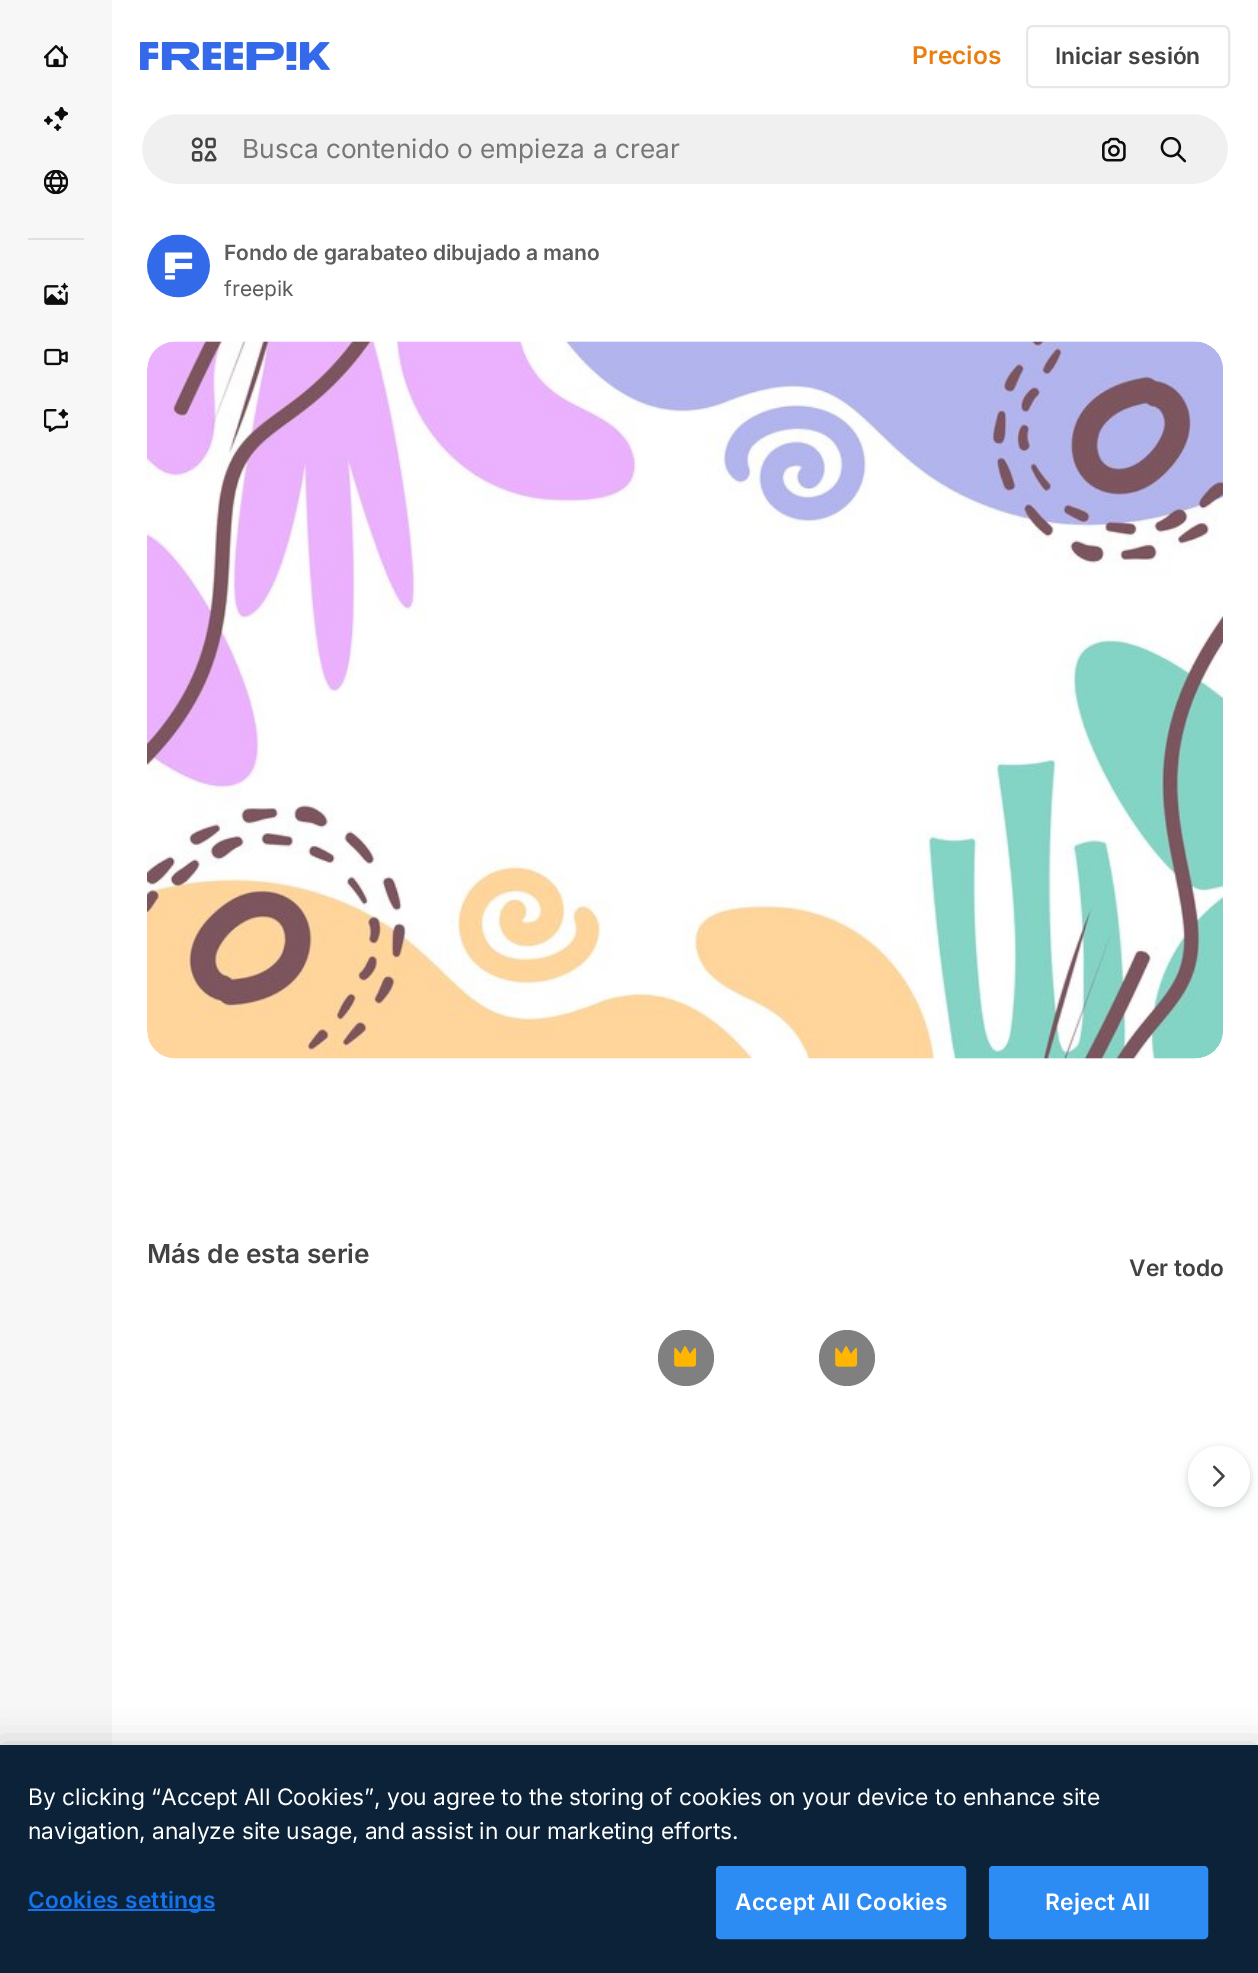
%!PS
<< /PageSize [1258 1973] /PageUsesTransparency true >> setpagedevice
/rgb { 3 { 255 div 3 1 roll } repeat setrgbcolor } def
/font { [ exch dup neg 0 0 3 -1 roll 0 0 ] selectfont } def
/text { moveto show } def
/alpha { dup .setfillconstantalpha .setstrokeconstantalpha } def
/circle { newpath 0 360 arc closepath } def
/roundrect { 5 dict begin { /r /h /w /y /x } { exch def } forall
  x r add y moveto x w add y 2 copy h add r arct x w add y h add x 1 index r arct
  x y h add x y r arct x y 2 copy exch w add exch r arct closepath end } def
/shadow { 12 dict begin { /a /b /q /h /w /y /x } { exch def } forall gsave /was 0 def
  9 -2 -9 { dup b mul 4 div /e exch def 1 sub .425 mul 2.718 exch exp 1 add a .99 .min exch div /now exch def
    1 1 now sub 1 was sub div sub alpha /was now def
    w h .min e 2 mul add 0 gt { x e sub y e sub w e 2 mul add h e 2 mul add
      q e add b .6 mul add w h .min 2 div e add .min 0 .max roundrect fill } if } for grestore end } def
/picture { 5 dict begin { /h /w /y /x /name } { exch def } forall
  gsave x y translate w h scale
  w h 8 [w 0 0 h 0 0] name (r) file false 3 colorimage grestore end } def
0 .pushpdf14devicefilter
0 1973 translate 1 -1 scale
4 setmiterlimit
255 255 255 rgb
0 0 1258 1973 rectfill
247 247 247 rgb
0 0 112 1745 rectfill
(img_01.rgb) 44 45 24 23 picture
(img_02.rgb) 44 107 24 24 picture
(img_03.rgb) 44 170 24 24 picture
224 224 224 rgb
28 238 56 2 rectfill
(img_04.rgb) 44 282 24 23 picture
(img_05.rgb) 44 348 24 18 picture
(img_06.rgb) 44 409 24 23 picture
(img_07.rgb) 140 42 190 28 picture
231 231 231 rgb
2 setlinewidth
1027 26 202 61 6 roundrect stroke
240 240 240 rgb
141 113 1088 72 36 roundrect gsave fill grestore
255 255 255 rgb
stroke
(img_08.rgb) 191 137 26 25 picture
(img_09.rgb) 1102 137 24 25 picture
(img_10.rgb) 1160 137 27 26 picture
(img_11.rgb) 147 234 63 64 picture
(img_12.rgb) 147 341 1076 718 picture
128 128 128 rgb
686 1358 28 circle fill
(img_13.rgb) 674 1346 23 21 picture
847 1358 28 circle fill
(img_13.rgb) 835 1346 23 21 picture
55 73 87 rgb
1188 1449 62 61 30.5 4.5 0.15 shadow
1188 1447 62 62 31 2 0.1 shadow
255 255 255 rgb
1188 1446 62 61 30.5 roundrect fill
(img_14.rgb) 1213 1465 12 22 picture
0 0 0 rgb
0 1745 1258 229 0 16 0.2 shadow
11 34 57 rgb
0 1745 1258 228 rectfill
18 115 235 rgb
28 1909 187 2 rectfill
44 140 244 rgb
717 1867 248 71 3 roundrect gsave fill grestore
stroke
990 1867 217 71 3 roundrect gsave fill grestore
stroke
/Inter-SemiBold 24.5 font
234 126 17 rgb
(Precios) 912 64 text
/Inter-SemiBold 22.75 font
66 66 66 rgb
(Iniciar sesión) 1055 64 text
/Inter-Regular 26.25 font
119 119 119 rgb
(Busca contenido o empieza a crear) 242 158 text
/Inter-SemiBold 21 font
92 92 92 rgb
(Fondo de garabateo dibujado a mano) 224 260 text
/Inter-Regular 21 font
(freepik) 224 296 text
/Inter-SemiBold 26.25 font
66 66 66 rgb
(Más de esta serie) 147 1263 text
/Inter-SemiBold 22.75 font
(Ver todo) 1129 1276 text
/Inter-Regular 22.75 font
255 255 255 rgb
(By clicking “Accept All Cookies”, you agree to the storing of cookies on your device to enhance site) 28 1805 text
(navigation, analyze site usage, and assist in our marketing efforts.) 28 1839 text
/Inter-SemiBold 22.75 font
18 115 235 rgb
28 1908 moveto 0.25 0 (Cookies settings) ashow
255 255 255 rgb
735 1910 moveto 0.25 0 (Accept All Cookies) ashow
1045 1910 moveto 0.25 0 (Reject All) ashow
.poppdf14devicefilter showpage
